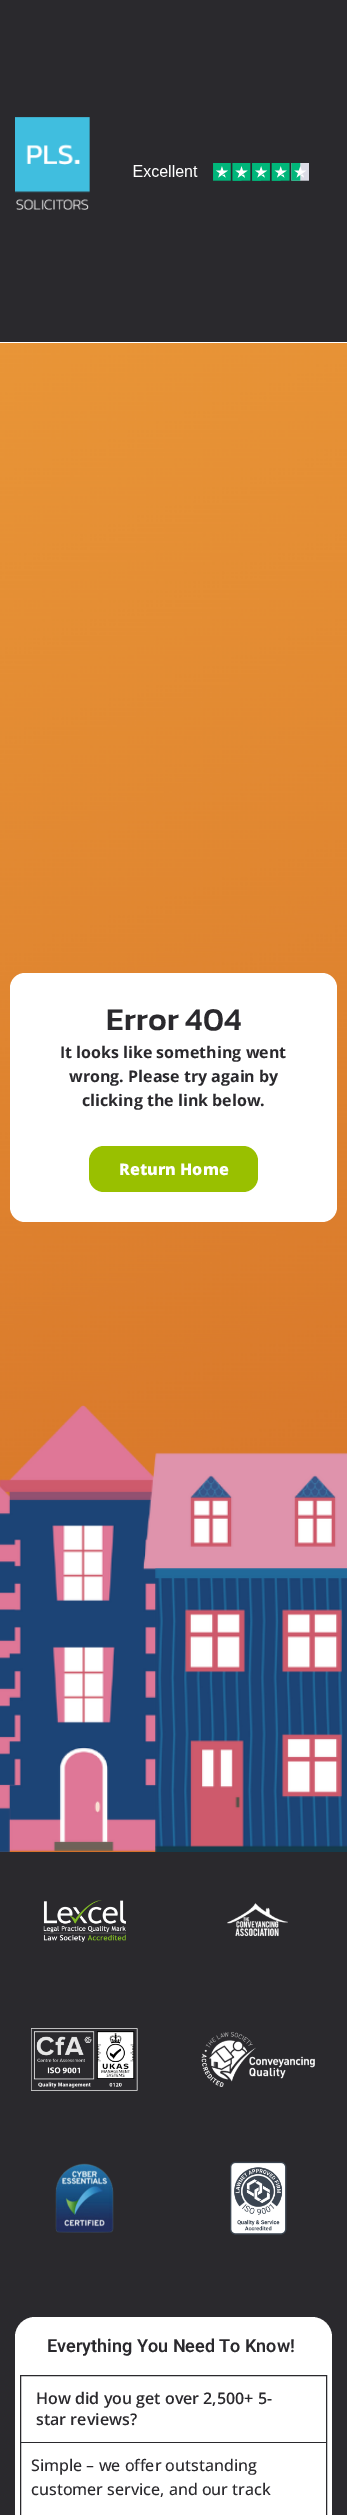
%!PS
<< /PageSize [347 2515] >> setpagedevice
/rgb { 3 { 255 div 3 1 roll } repeat setrgbcolor } def
/font { [ exch dup neg 0 0 3 -1 roll 0 0 ] selectfont } def
/text { moveto show } def
/roundrect { 5 dict begin { /r /h /w /y /x } { exch def } forall
  x r add y moveto x w add y 2 copy h add r arct x w add y h add x 1 index r arct
  x y h add x y r arct x y 2 copy exch w add exch r arct closepath end } def
/picture { 5 dict begin { /h /w /y /x /name } { exch def } forall
  gsave x y translate w h scale
  w h 8 [w 0 0 h 0 0] name (r) file false 3 colorimage grestore end } def
0 2515 translate 1 -1 scale
4 setmiterlimit
255 255 255 rgb
0 0 347 2515 rectfill
42 41 45 rgb
0 0 347 342 rectfill
(img_01.rgb) 15 117 75 93 picture
(img_02.rgb) 133 163 176 18 picture
(img_03.rgb) 0 343 347 1509 picture
255 255 255 rgb
10 973 327 249 15 roundrect fill
153 192 0 rgb
89 1146 169 46 15 roundrect fill
42 41 45 rgb
0 1852 347 663 rectfill
(img_04.rgb) 43 1900 83 42 picture
(img_05.rgb) 227 1903 61 34 picture
(img_06.rgb) 31 2028 107 63 picture
(img_07.rgb) 201 2032 114 55 picture
(img_08.rgb) 55 2163 59 70 picture
(img_09.rgb) 230 2161 57 74 picture
255 255 255 rgb
15 2317 317 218 20 roundrect fill
42 41 45 rgb
20.5 2375.5 306 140 rectstroke
21 2442 305 1 rectfill
/Kanit-Medium 32 font
(Error 404) 106 1030 text
/OpenSans-Bold 16 font
(It looks like something went) 60 1058 text
(wrong. Please try again by) 69 1082 text
(clicking the link below.) 82 1106 text
/OpenSans-ExtraBold 16 font
255 255 255 rgb
(Return Home) 119 1175 text
/Roboto-SemiBold 18 font
42 41 45 rgb
(Everything You Need To Know!) 47 2352 text
/OpenSans-SemiBold 16 font
(How did you get over 2,500+ 5-) 36 2404 text
(star reviews?) 36 2425 text
/OpenSans-Medium 16 font
(Simple – we offer outstanding) 31 2471 text
(customer service, and our track) 31 2495 text
showpage
